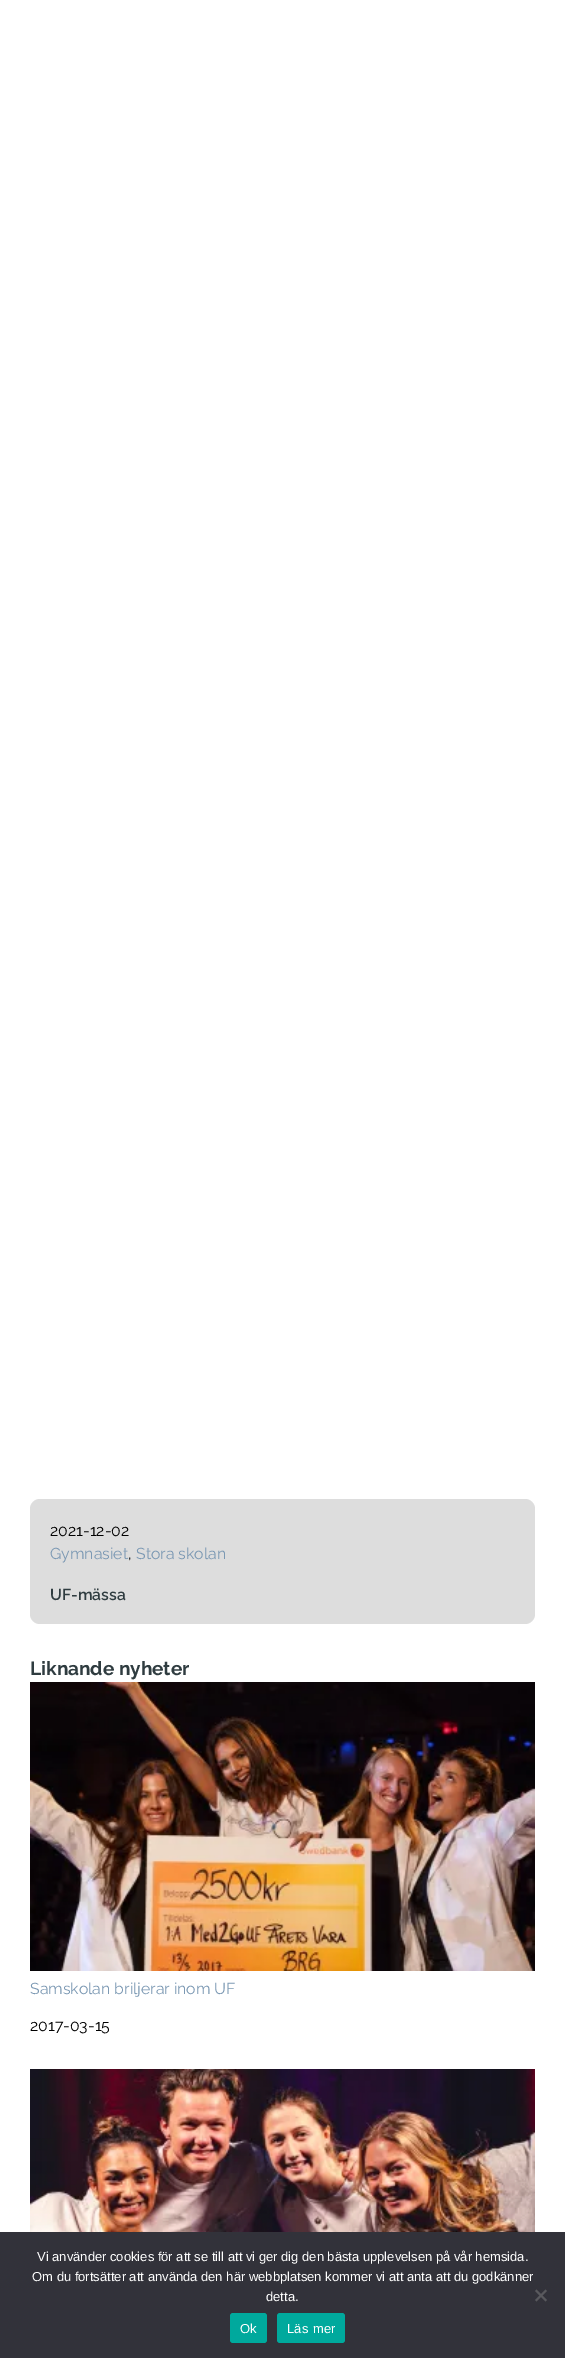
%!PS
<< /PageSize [565 2358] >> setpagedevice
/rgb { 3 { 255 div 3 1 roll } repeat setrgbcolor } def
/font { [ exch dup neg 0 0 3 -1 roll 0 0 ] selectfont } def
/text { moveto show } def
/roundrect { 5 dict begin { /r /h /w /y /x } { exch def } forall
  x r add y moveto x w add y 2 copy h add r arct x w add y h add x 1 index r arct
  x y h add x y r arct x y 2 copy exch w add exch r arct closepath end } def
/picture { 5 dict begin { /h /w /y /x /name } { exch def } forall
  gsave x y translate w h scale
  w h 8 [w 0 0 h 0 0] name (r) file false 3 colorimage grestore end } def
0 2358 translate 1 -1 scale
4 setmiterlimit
255 255 255 rgb
0 0 565 2358 rectfill
221 221 221 rgb
30 1499 505 125 10 roundrect fill
(img_01.rgb) 30 1682 505 289 picture
(img_02.rgb) 30 2069 505 163 picture
50 50 58 rgb
0 2232 565 126 rectfill
89 89 93 rgb
545.5 2289.5 moveto 1.5 1.5 rlineto -10.5 10.5 rlineto -1.5 -1.5 rlineto closepath fill
535 2291 moveto 1.5 -1.5 rlineto 10.5 10.5 rlineto -1.5 1.5 rlineto closepath fill
0 169 157 rgb
230 2313 37 30 3 roundrect fill
277 2313 68 30 3 roundrect fill
/Raleway-Regular 15.8 font
0 0 0 rgb
(2021-12-02) 50 1536 text
124 153 180 rgb
(Gymnasiet) 50 1559 text
0 0 0 rgb
(,) 128 1559 text
124 153 180 rgb
(Stora skolan) 136 1559 text
/Raleway-SemiBold 15.8 font
47 60 64 rgb
(UF-mässa) 50 1600 text
/Raleway-Bold 19 font
(Liknande nyheter) 30 1675 text
/Raleway-Regular 15.8 font
124 153 180 rgb
(Samskolan briljerar inom UF) 30 1994 text
0 0 0 rgb
(2017-03-15) 30 2031 text
/LiberationSans-Regular 13 font
255 255 255 rgb
(Vi använder cookies för att se till att vi ger dig den bästa upplevelsen på vår hemsida.) 37 2261 text
(Om du fortsätter att använda den här webbplatsen kommer vi att anta att du godkänner) 32 2281 text
(detta.) 266 2301 text
240 2333 moveto 0.25 0 (Ok) ashow
287 2333 moveto 0.25 0 (Läs mer) ashow
showpage
